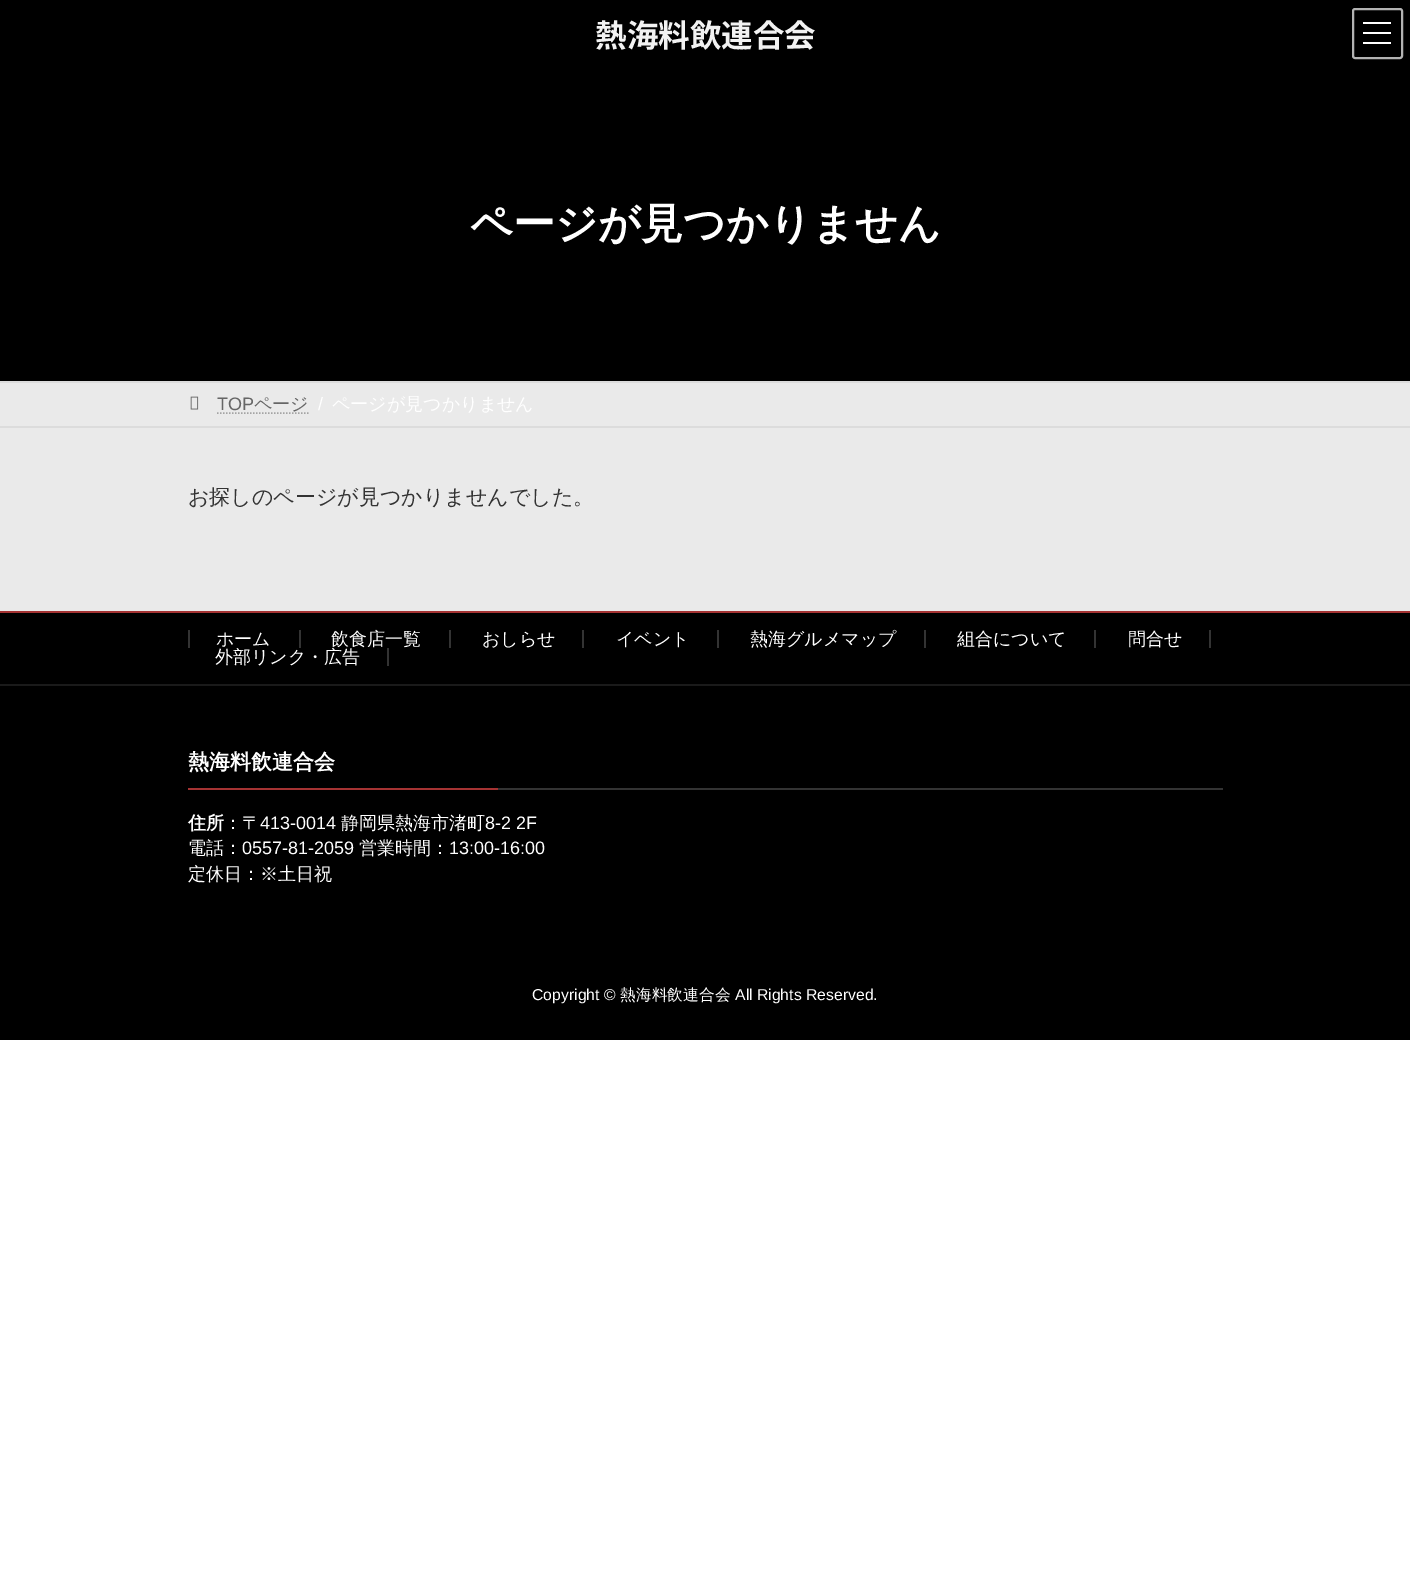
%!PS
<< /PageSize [1410 1580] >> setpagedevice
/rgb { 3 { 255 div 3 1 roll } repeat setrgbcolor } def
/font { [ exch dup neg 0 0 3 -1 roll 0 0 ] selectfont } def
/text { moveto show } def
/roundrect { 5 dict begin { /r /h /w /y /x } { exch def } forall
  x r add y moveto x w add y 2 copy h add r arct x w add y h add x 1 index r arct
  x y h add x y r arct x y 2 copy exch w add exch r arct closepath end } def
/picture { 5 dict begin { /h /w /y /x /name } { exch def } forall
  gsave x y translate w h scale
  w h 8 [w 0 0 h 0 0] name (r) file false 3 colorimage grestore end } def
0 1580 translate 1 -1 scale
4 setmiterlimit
255 255 255 rgb
0 0 1410 1580 rectfill
234 234 234 rgb
0 383 1410 228 rectfill
0 0 0 rgb
0 0 1410 381 rectfill
255 255 255 rgb
1363 22 28 2 rectfill
1363 32 28 2 rectfill
1363 42 28 2 rectfill
179 179 179 rgb
2 setlinewidth
1353 9 49 49 2 roundrect stroke
220 220 220 rgb
0 381 1410 2 rectfill
0 426 1410 2 rectfill
(img_01.rgb) 190 396 9 14 picture
164 164 164 rgb
1.5 setlinewidth
[1.5 1.5] 0 setdash
217 413 moveto 92 0 rlineto stroke
0 0 0 rgb
0 613 1410 427 rectfill
165 51 51 rgb
0 611 1410 2 rectfill
26 26 26 rgb
0 684 1410 2 rectfill
51 51 51 rgb
299 630 2 18 rectfill
188 630 2 18 rectfill
449 630 2 18 rectfill
582 630 2 18 rectfill
717 630 2 18 rectfill
924 630 2 18 rectfill
1094 630 2 18 rectfill
1209 630 2 18 rectfill
387 648 2 18 rectfill
498 788 725 2 rectfill
165 51 51 rgb
188 788 310 2 rectfill
/NotoSansJP-Bold 31.5 font
242 242 242 rgb
(熱海料飲連合会) 595 47 text
/WenQuanYiZenHei-Bold 42 font
255 255 255 rgb
(ページが見つかりません) 470 238 text
/LiberationSans-Regular 18 font
102 102 102 rgb
(TOP) 217 410 text
/WenQuanYiZenHei-Medium 18 font
(ページ) 254 410 text
/LiberationSans-Regular 18 font
255 255 255 rgb
(/) 318 410 text
/WenQuanYiZenHei-Medium 18 font
(ページが見つかりません) 332 410 text
/WenQuanYiZenHei-Medium 21 font
51 51 51 rgb
(お探しのページが見つかりませんでした。) 188 504 text
/WenQuanYiZenHei-Medium 18 font
255 255 255 rgb
(ホーム) 216 645 text
(飲食店一覧) 331 645 text
(おしらせ) 482 645 text
(イベント) 616 645 text
(熱海グルメマップ) 750 645 text
(組合について) 957 645 text
(問合せ) 1128 645 text
(外部リンク・広告) 215 663 text
/WenQuanYiZenHei-Bold 21 font
(熱海料飲連合会) 188 769 text
/WenQuanYiZenHei-Bold 18 font
(住所) 188 829 text
/WenQuanYiZenHei-Medium 18 font
(：〒) 224 829 text
/LiberationSans-Regular 18 font
(413-0014) 260 829 text
/WenQuanYiZenHei-Medium 18 font
(静岡県熱海市渚町) 341 829 text
/LiberationSans-Regular 18 font
(8-2 2F) 485 829 text
/WenQuanYiZenHei-Medium 18 font
(電話：) 188 854 text
/LiberationSans-Regular 18 font
(0557-81-2059) 242 854 text
/WenQuanYiZenHei-Medium 18 font
(営業時間：) 359 854 text
/LiberationSans-Regular 18 font
(13:00-16:00) 449 854 text
/WenQuanYiZenHei-Medium 18 font
(定休日：※土日祝) 188 880 text
/LiberationSans-Regular 15.75 font
(Copyright ©) 532 1000 text
/WenQuanYiZenHei-Medium 15.75 font
(熱海料飲連合会) 620 1000 text
/LiberationSans-Regular 15.75 font
(All Rights Reserved.) 735 1000 text
showpage
